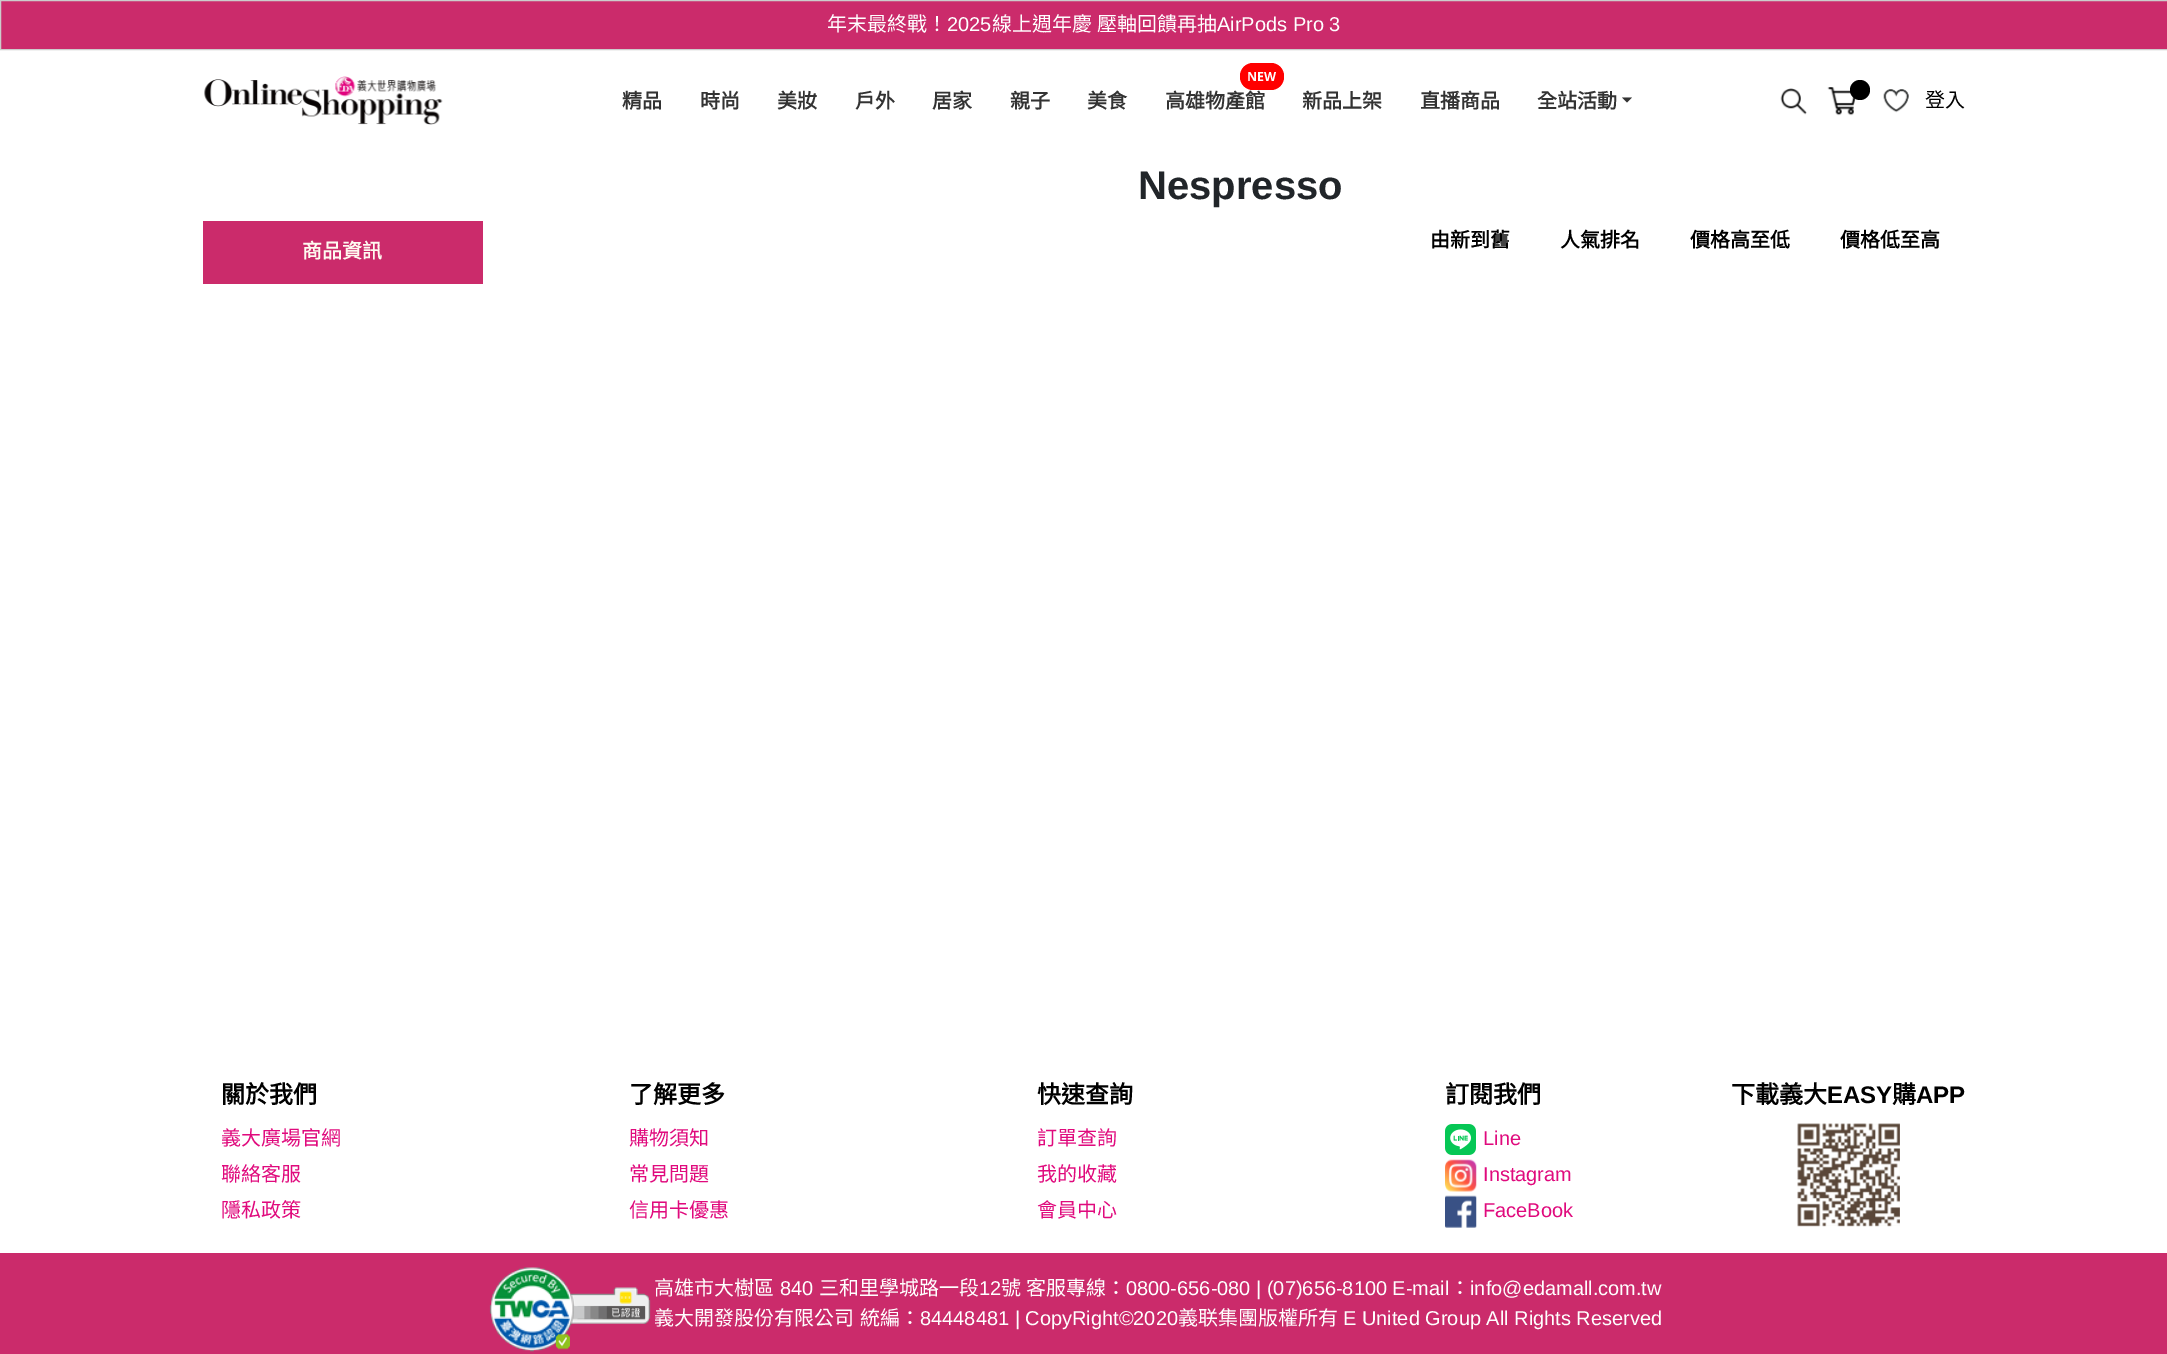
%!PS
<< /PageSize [2167 1354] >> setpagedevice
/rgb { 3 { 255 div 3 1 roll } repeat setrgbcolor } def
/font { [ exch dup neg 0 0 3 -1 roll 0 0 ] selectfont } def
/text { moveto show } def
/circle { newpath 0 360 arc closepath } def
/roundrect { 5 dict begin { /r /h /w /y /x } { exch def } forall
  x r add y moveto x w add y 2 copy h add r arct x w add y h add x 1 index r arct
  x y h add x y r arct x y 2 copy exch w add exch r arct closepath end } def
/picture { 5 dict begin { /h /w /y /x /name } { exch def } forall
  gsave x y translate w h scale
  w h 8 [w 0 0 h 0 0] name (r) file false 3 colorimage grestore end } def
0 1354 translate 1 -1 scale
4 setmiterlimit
255 255 255 rgb
0 0 2167 1354 rectfill
203 43 107 rgb
0.5 0.5 moveto 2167 0 rlineto 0 49 rlineto -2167 0 rlineto closepath gsave fill grestore
204 204 204 rgb
stroke
(img_01.rgb) 204 76 239 49 picture
255 0 0 rgb
1240 63 44 27 13 roundrect fill
51 51 51 rgb
1622 97.5 moveto 10 0 rlineto -5 5 rlineto closepath fill
(img_02.rgb) 1780 88 27 27 picture
(img_03.rgb) 1827 87 29 29 picture
0 0 0 rgb
1860 90 10 circle fill
(img_04.rgb) 1883 89 26 24 picture
203 43 107 rgb
203 221 280 63 rectfill
(img_05.rgb) 1445 1124 31 31 picture
(img_06.rgb) 1445 1159 32 33 picture
(img_07.rgb) 1445 1195 32 33 picture
(img_08.rgb) 1797 1123 103 104 picture
0 1253 2167 101 rectfill
(img_09.rgb) 489 1267 162 85 picture
(img_10.rgb) 573 1306 72 14 picture
(img_11.rgb) 555 1334 15 16 picture
/NotoSansCJKTC-Regular 20 font
255 255 255 rgb
(年末最終戰！) 827 31 text
/LiberationSans-Regular 20 font
(2025) 947 31 text
/NotoSansCJKTC-Regular 20 font
(線上週年慶) 992 31 text
(壓軸回饋再抽) 1097 31 text
/LiberationSans-Regular 20 font
(AirPods Pro 3) 1217 31 text
/NotoSansCJKTC-Bold 20 font
51 51 51 rgb
(精品) 622 108 text
(時尚) 700 108 text
(美妝) 777 108 text
(戶外) 855 108 text
(居家) 932 108 text
(親子) 1010 108 text
(美食) 1087 108 text
/OpenSans-Bold 12.5 font
255 255 255 rgb
(NEW) 1247 81 text
/NotoSansCJKTC-Bold 20 font
51 51 51 rgb
(高雄物產館) 1165 108 text
(新品上架) 1302 108 text
(直播商品) 1420 108 text
(全站活動) 1537 108 text
/NotoSansCJKTC-Regular 20 font
0 0 0 rgb
(登入) 1925 107 text
/NotoSansCJKTC-Bold 20 font
255 250 240 rgb
(商品資訊) 302 258 text
/LiberationSans-Bold 40 font
33 37 41 rgb
(Nespresso) 1138 199 text
/NotoSansCJKTC-Bold 20 font
0 0 0 rgb
(由新到舊) 1430 247 text
(人氣排名) 1560 247 text
(價格高至低) 1690 247 text
(價格低至高) 1840 247 text
/NotoSansCJKTC-Bold 24 font
(關於我們) 221 1103 text
(了解更多) 629 1103 text
(快速查詢) 1037 1103 text
(訂閱我們) 1445 1103 text
/NotoSansCJKTC-Regular 20 font
224 10 125 rgb
(義大廣場官網) 221 1145 text
(購物須知) 629 1145 text
(訂單查詢) 1037 1145 text
/LiberationSans-Regular 20 font
(Line) 1483 1145 text
/NotoSansCJKTC-Regular 20 font
(聯絡客服) 221 1181 text
(常見問題) 629 1181 text
(我的收藏) 1037 1181 text
/LiberationSans-Regular 20 font
(Instagram) 1483 1181 text
/NotoSansCJKTC-Regular 20 font
(隱私政策) 221 1217 text
(信用卡優惠) 629 1217 text
(會員中心) 1037 1217 text
/LiberationSans-Regular 20 font
(FaceBook) 1483 1217 text
/NotoSansCJKTC-Bold 24 font
0 0 0 rgb
(下載義大) 1731 1103 text
/LiberationSans-Bold 24 font
(EASY) 1827 1103 text
/NotoSansCJKTC-Bold 24 font
(購) 1892 1103 text
/LiberationSans-Bold 24 font
(APP) 1916 1103 text
/NotoSansCJKTC-Regular 20 font
255 255 255 rgb
(高雄市大樹區) 654 1295 text
/LiberationSans-Regular 20 font
(840) 780 1295 text
/NotoSansCJKTC-Regular 20 font
(三和里學城路一段) 819 1295 text
/LiberationSans-Regular 20 font
(12) 979 1295 text
/NotoSansCJKTC-Regular 20 font
(號) 1001 1295 text
(客服專線：) 1026 1295 text
/LiberationSans-Regular 20 font
(0800-656-080 | \(07\)656-8100 E-mail) 1126 1295 text
/NotoSansCJKTC-Regular 20 font
(：) 1450 1295 text
/LiberationSans-Regular 20 font
(info@edamall.com.tw) 1470 1295 text
/NotoSansCJKTC-Regular 20 font
(義大開發股份有限公司) 654 1325 text
(統編：) 860 1325 text
/LiberationSans-Regular 20 font
(84448481 | CopyRight©2020) 920 1325 text
/NotoSansCJKTC-Regular 20 font
(義联集團版權所有) 1178 1325 text
/LiberationSans-Regular 20 font
(E United Group All Rights Reserved) 1343 1325 text
showpage
